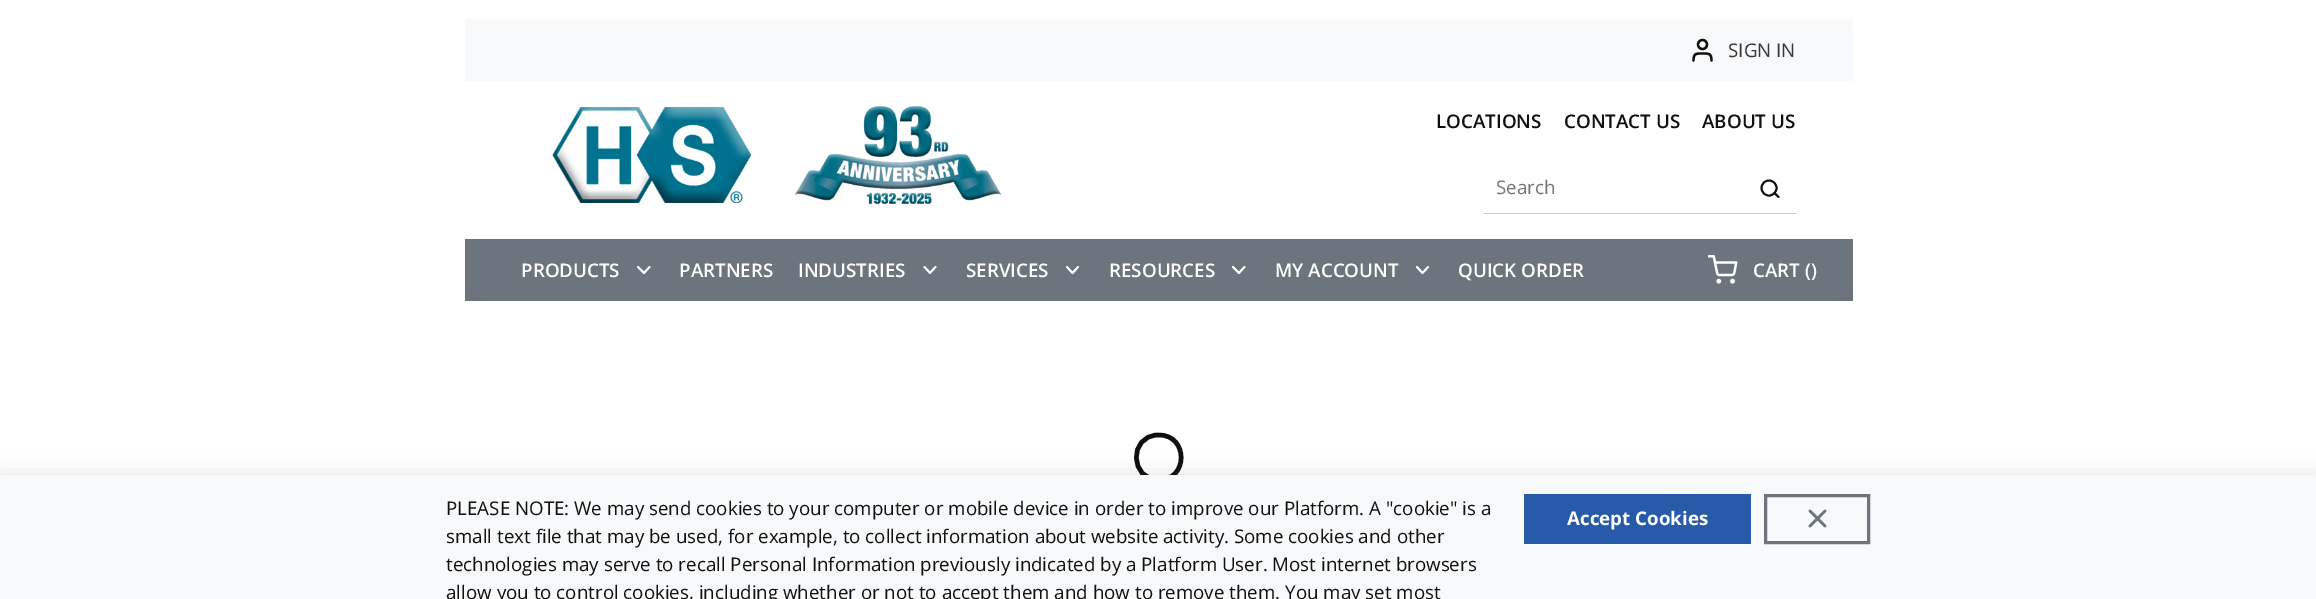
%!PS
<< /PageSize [2316 599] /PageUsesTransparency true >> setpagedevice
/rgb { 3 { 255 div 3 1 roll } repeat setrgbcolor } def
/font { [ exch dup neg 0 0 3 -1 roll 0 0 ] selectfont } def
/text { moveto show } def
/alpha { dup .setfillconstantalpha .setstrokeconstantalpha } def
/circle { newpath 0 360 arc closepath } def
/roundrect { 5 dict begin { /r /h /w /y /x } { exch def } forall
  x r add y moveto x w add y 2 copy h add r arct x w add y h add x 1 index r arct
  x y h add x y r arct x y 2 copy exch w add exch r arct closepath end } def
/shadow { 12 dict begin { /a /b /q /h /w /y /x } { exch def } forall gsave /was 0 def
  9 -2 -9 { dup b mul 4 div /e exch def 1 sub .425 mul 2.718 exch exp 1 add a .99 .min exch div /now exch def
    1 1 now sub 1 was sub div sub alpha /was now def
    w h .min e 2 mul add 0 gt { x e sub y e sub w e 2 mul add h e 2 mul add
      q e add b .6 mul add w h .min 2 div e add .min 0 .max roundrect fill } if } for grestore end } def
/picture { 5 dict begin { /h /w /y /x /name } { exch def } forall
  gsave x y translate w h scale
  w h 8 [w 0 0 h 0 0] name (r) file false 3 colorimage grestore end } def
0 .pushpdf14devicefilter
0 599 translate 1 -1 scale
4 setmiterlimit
255 255 255 rgb
0 0 2316 599 rectfill
248 249 250 rgb
465 19 1388 62 rectfill
15 15 15 rgb
2.3 setlinewidth
1 setlinecap
1 setlinejoin
1711.5 60.5 moveto 0 -7.5 -2.5 -7 -9 -7 rcurveto -6.5 0 -9 -0.5 -9 7 rcurveto stroke
0 setlinecap
0 setlinejoin
1702.5 44.5 4.5 circle stroke
(img_01.rgb) 552 107 199 96 picture
(img_02.rgb) 795 106 207 98 picture
204 204 204 rgb
1484 213 312 1 rectfill
15 15 15 rgb
1.9 setlinewidth
1769 188 7.5 circle stroke
1 setlinecap
1 setlinejoin
1778.5 197 moveto -4 -4 rlineto stroke
108 117 125 rgb
465 239 1388 62 rectfill
255 255 255 rgb
638 267 moveto 6 6 rlineto 5.5 -6 rlineto stroke
924.5 267 moveto 5.5 6 rlineto 5.5 -6 rlineto stroke
1067 267 moveto 5.5 6 rlineto 5.5 -6 rlineto stroke
1233 267 moveto 6 6 rlineto 5.5 -6 rlineto stroke
1417 267 moveto 5.5 6 rlineto 5.5 -6 rlineto stroke
(img_03.rgb) 1708 255 30 29 picture
15 15 15 rgb
4.5 setlinewidth
0 setlinejoin
1159 435 moveto 29.5 0 29.5 45 0 45 rcurveto -29.5 0 -30.5 -44 -1.5 -45 rcurveto stroke
0 0 0 rgb
0 476 2316 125 0 11 0.12 shadow
248 249 250 rgb
0 475 2316 124 rectfill
39 90 168 rgb
1524 494 227 50 rectfill
108 117 125 rgb
3 setlinewidth
0 setlinecap
1765.5 495.5 103 47 rectstroke
2.5 setlinewidth
1 setlinecap
1 setlinejoin
1825 511 moveto -15 15 rlineto 1810 511 moveto 15 15 rlineto stroke
/OpenSans-Regular 18.75 font
54 54 54 rgb
(SIGN IN) 1728 57 text
/OpenSans-SemiBold 18.75 font
15 15 15 rgb
(LOCATIONS) 1436 128 text
(CONTACT US) 1564 128 text
(ABOUT US) 1702 128 text
/OpenSans-Regular 18.75 font
117 117 117 rgb
(Search) 1496 194 text
/OpenSans-SemiBold 18.75 font
255 255 255 rgb
(PRODUCTS) 521 277 text
(PARTNERS) 679 277 text
(INDUSTRIES) 798 277 text
(SERVICES) 966 277 text
(RESOURCES) 1109 277 text
(MY ACCOUNT) 1275 277 text
(QUICK ORDER) 1458 277 text
(CART \(\)) 1753 277 text
/OpenSans-Regular 18.75 font
15 15 15 rgb
(PLEASE NOTE: We may send cookies to your computer or mobile device in order to improve our Platform. A "cookie" is a) 446 515 text
(small text file that may be used, for example, to collect information about website activity. Some cookies and other) 446 543 text
(technologies may serve to recall Personal Information previously indicated by a Platform User. Most internet browsers) 446 571 text
(allow you to control cookies, including whether or not to accept them and how to remove them. You may set most) 446 599 text
/OpenSans-Bold 18.75 font
255 255 255 rgb
(Accept Cookies) 1567 525 text
.poppdf14devicefilter showpage
